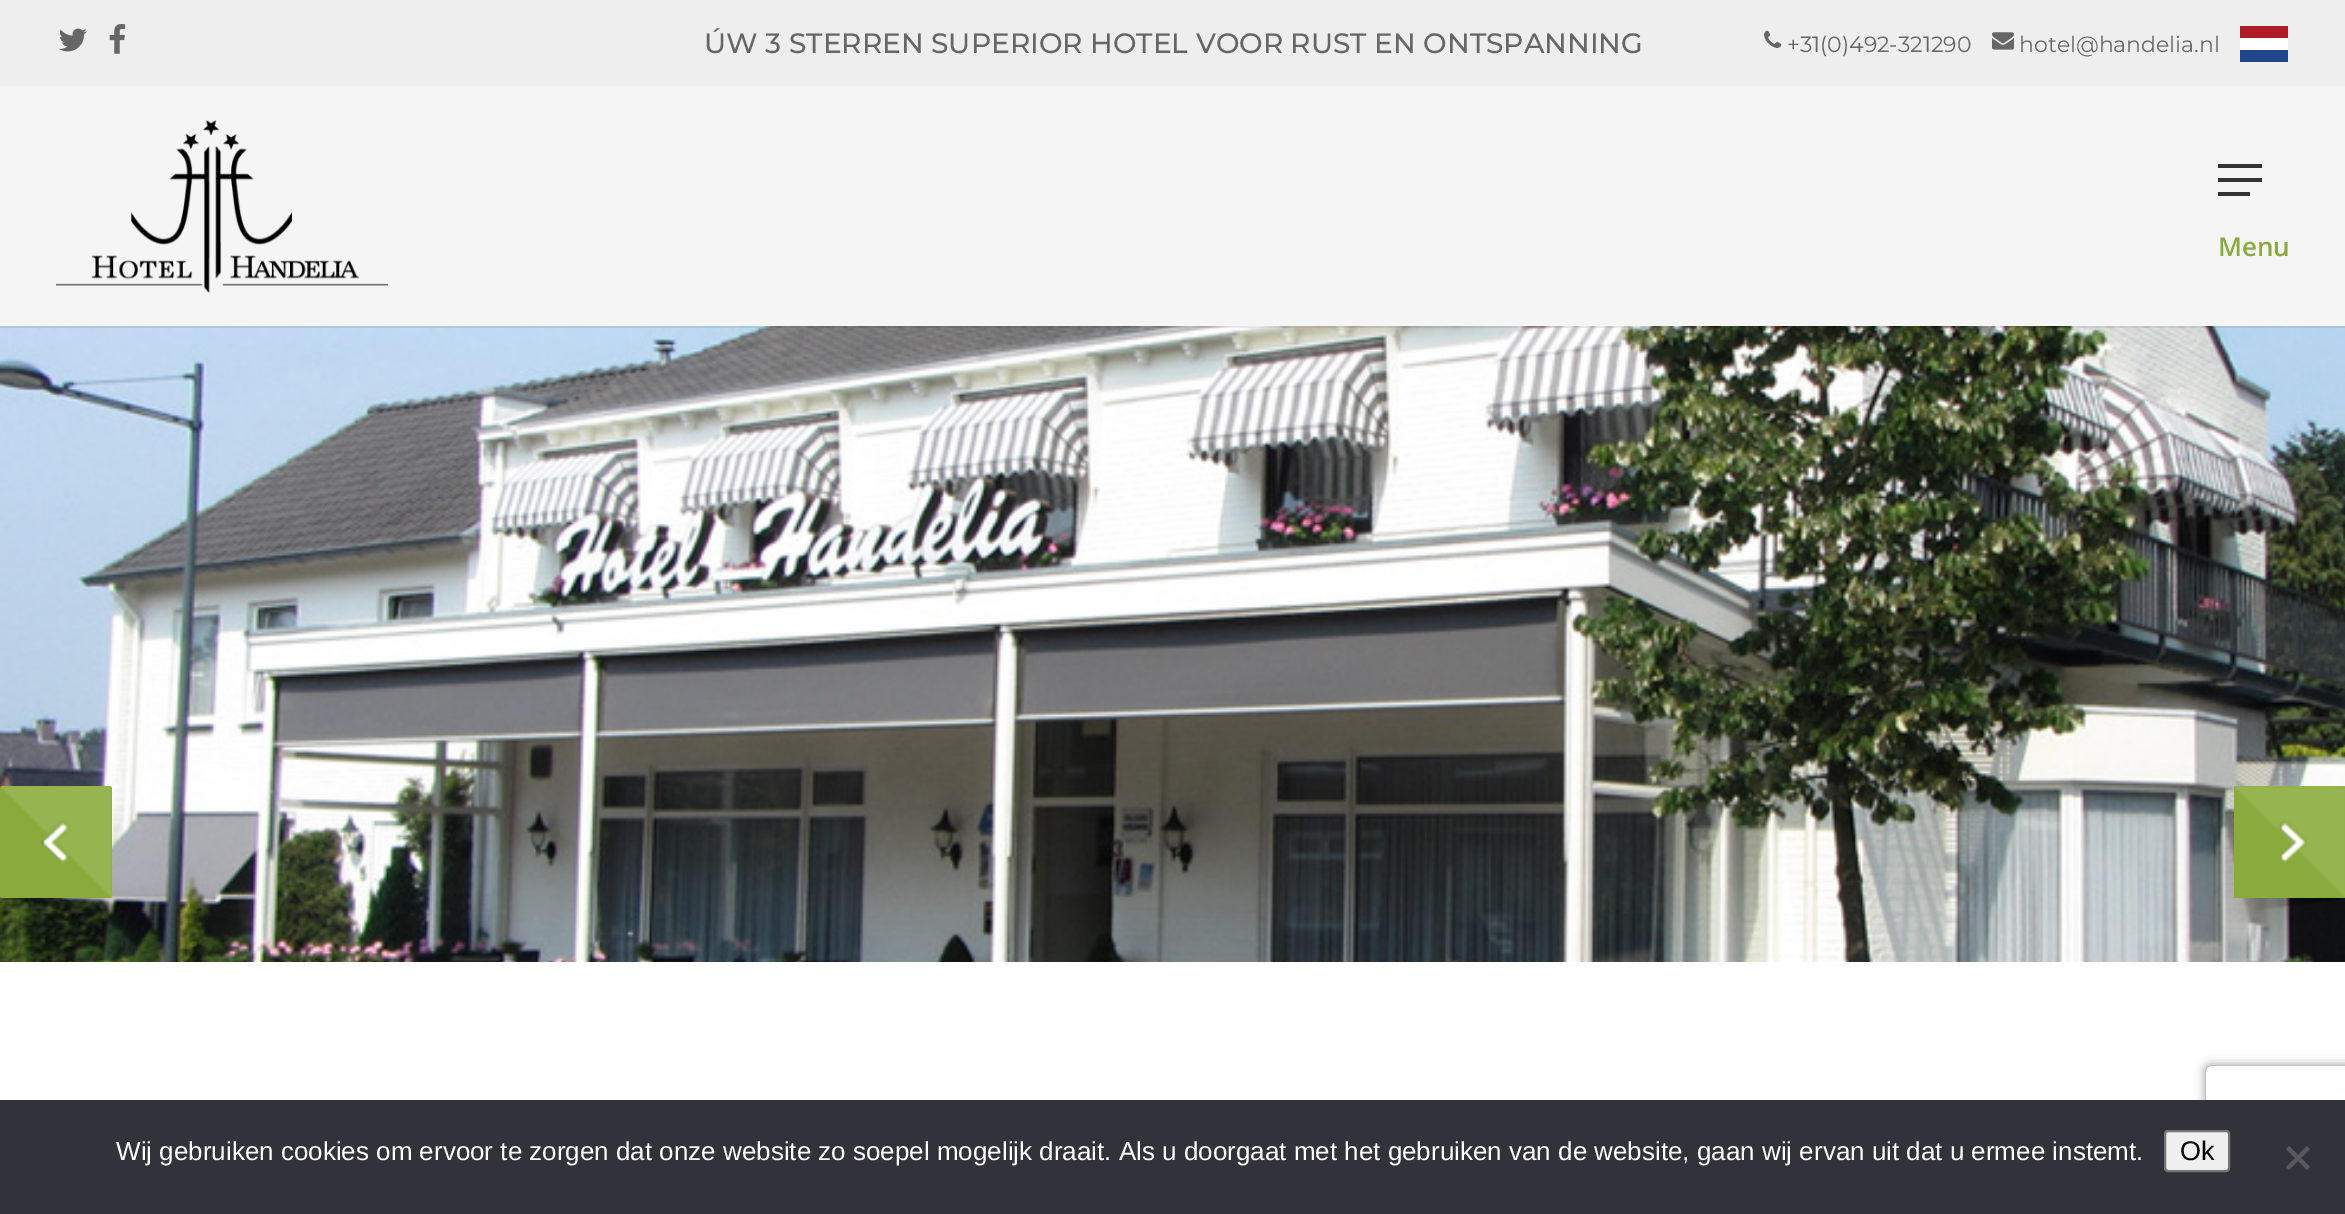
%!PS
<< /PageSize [2345 1214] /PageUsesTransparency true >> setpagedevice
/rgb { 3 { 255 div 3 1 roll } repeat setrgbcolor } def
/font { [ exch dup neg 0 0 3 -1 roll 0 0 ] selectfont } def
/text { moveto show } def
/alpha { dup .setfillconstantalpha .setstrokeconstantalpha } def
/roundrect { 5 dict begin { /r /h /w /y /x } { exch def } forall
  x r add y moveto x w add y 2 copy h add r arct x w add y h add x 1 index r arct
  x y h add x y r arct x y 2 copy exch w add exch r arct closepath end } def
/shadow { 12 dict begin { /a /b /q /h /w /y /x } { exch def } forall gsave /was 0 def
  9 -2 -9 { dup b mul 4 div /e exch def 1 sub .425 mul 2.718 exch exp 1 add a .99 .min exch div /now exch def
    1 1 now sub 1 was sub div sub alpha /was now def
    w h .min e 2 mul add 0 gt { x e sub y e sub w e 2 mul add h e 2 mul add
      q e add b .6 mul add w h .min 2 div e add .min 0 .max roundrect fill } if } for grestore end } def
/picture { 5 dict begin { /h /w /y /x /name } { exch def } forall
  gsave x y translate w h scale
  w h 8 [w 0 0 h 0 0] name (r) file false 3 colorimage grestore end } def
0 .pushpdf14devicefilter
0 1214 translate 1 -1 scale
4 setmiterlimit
255 255 255 rgb
0 0 2345 1214 rectfill
(img_06.rgb) 0 326 2345 636 picture
0.08 alpha
0 0 0 rgb
0 326 2345 2 rectfill
1 alpha
245 245 245 rgb
0 86 2345 240 rectfill
238 238 238 rgb
0 0 2345 86 rectfill
(img_01.rgb) 59 28 28 24 picture
(img_02.rgb) 109 24 17 30 picture
(img_03.rgb) 1764 30 18 18 picture
(img_04.rgb) 1992 32 22 18 picture
174 28 40 rgb
2240 26 48 12 rectfill
255 255 255 rgb
2240 38 48 12 rectfill
33 70 139 rgb
2240 50 48 12 rectfill
(img_05.rgb) 56 120 332 173 picture
51 51 51 rgb
2218 164 44 4 rectfill
2218 192 32 4 rectfill
2218 178 44 4 rectfill
138 171 59 rgb
0 786 112 112 2 roundrect fill
(img_07.rgb) 0 786 112 111 picture
(img_08.rgb) 0 898 93 9 picture
2234 786 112 112 2 roundrect fill
(img_09.rgb) 2235 786 110 111 picture
(img_10.rgb) 2255 898 86 12 picture
gsave
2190 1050 moveto 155 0 rlineto 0 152 rlineto -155 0 rlineto closepath 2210 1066 moveto 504 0 rlineto 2 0 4 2 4 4 rcurveto 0 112 rlineto 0 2 -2 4 -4 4 rcurveto -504 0 rlineto -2 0 -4 -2 -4 -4 rcurveto 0 -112 rlineto 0 -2 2 -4 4 -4 rcurveto closepath eoclip newpath
128 128 128 rgb
2206 1066 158 120 4 5 1 shadow
grestore
50 50 58 rgb
0 1100 2345 114 rectfill
239 239 239 rgb
2165 1131 64 40 3 roundrect gsave fill grestore
118 118 118 rgb
2 setlinewidth
stroke
89 89 93 rgb
2307 1146 moveto 3 3 rlineto -21 21 rlineto -3 -3 rlineto closepath fill
2286 1149 moveto 3 -3 rlineto 21 21 rlineto -3 3 rlineto closepath fill
/Montserrat-Medium 28 font
102 102 102 rgb
(ÚW 3 STERREN SUPERIOR HOTEL VOOR RUST EN ONTSPANNING) 704 53 text
/Montserrat-Regular 22 font
(+31\(0\)492-321290) 1787 52 text
(hotel@handelia.nl) 2019 52 text
/OpenSans-SemiBold 26 font
138 171 59 rgb
(Menu) 2218 256 text
/LiberationSans-Regular 26 font
255 255 255 rgb
(Wij gebruiken cookies om ervoor te zorgen dat onze website zo soepel mogelijk draait. Als u doorgaat met het gebruiken van de website, gaan wij ervan uit dat u ermee instemt.) 116 1160 text
/LiberationSans-Regular 27 font
0 0 0 rgb
(Ok) 2180 1160 text
.poppdf14devicefilter showpage
